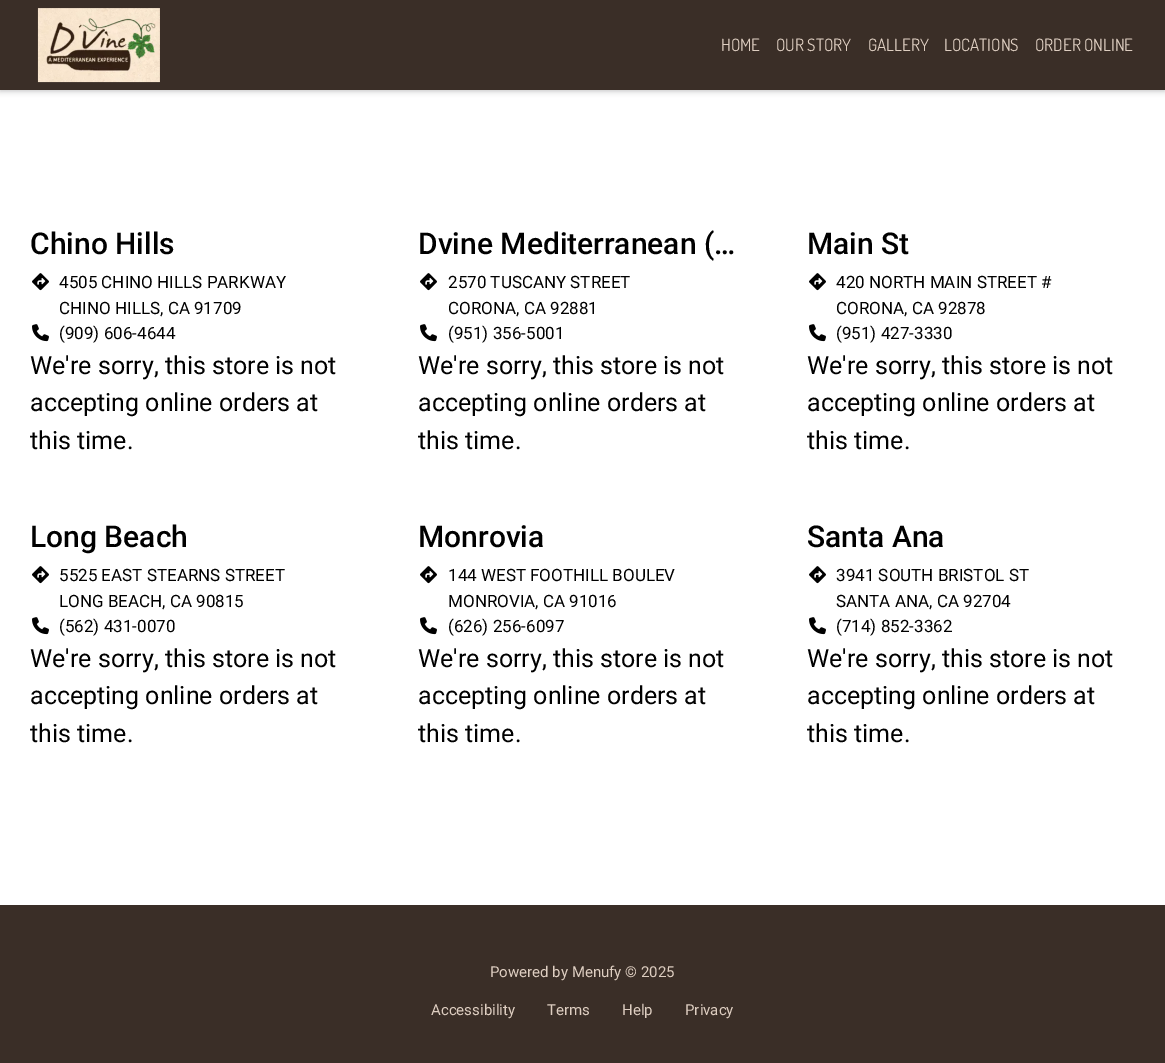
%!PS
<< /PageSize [1165 1063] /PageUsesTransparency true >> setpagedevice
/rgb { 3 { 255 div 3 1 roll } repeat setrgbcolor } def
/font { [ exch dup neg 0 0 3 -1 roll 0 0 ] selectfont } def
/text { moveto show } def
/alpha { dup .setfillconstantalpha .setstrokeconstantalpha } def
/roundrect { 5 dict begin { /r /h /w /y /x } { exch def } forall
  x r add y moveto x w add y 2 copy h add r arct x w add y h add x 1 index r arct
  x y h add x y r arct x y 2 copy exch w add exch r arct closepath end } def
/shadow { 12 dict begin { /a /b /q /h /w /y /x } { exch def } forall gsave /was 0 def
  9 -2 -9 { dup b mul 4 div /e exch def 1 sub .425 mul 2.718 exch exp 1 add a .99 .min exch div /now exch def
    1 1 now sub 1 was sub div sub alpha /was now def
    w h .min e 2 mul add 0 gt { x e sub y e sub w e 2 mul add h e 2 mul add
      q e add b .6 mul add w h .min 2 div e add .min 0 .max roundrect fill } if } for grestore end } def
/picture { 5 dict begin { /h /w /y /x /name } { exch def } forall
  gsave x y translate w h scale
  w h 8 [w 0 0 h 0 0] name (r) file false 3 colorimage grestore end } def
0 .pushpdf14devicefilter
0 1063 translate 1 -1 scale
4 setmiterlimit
255 255 255 rgb
0 0 1165 1063 rectfill
32 33 36 rgb
0 1 1165 90 0 3 0.28 shadow
58 46 39 rgb
0 0 1165 90 rectfill
(img_01.rgb) 37 8 123 75 picture
(img_02.rgb) 32 273 17 18 picture
(img_03.rgb) 32 324 17 18 picture
(img_02.rgb) 420 273 17 18 picture
(img_03.rgb) 420 324 17 18 picture
(img_02.rgb) 809 273 17 18 picture
(img_03.rgb) 809 324 17 18 picture
(img_02.rgb) 32 566 17 18 picture
(img_03.rgb) 32 617 17 18 picture
(img_02.rgb) 420 566 17 18 picture
(img_03.rgb) 420 617 17 18 picture
(img_02.rgb) 809 566 17 18 picture
(img_03.rgb) 809 617 17 18 picture
0 905 1165 158 rectfill
/Dosis-Regular 17 font
222 206 193 rgb
(HOME) 721 51 text
(OUR STORY) 776 51 text
(GALLERY) 868 51 text
(LOCATIONS) 944 51 text
(ORDER ONLINE) 1035 51 text
/Roboto-Medium 30 font
0 0 0 rgb
(Chino Hills) 30 254 text
/Roboto-Regular 17 font
(4505 CHINO HILLS PARKWAY) 59 288 text
(CHINO HILLS, CA 91709) 59 314 text
(\(909\) 606-4644) 59 339 text
/Roboto-Regular 25 font
(We're sorry, this store is not) 30 374 text
(accepting online orders at) 30 411 text
(this time.) 30 449 text
/Roboto-Medium 30 font
(Dvine Mediterranean \(…) 418 254 text
/Roboto-Regular 17 font
(2570 TUSCANY STREET) 448 288 text
(CORONA, CA 92881) 448 314 text
(\(951\) 356-5001) 448 339 text
/Roboto-Regular 25 font
(We're sorry, this store is not) 418 374 text
(accepting online orders at) 418 411 text
(this time.) 418 449 text
/Roboto-Medium 30 font
(Main St) 807 254 text
/Roboto-Regular 17 font
(420 NORTH MAIN STREET #) 836 288 text
(CORONA, CA 92878) 836 314 text
(\(951\) 427-3330) 836 339 text
/Roboto-Regular 25 font
(We're sorry, this store is not) 807 374 text
(accepting online orders at) 807 411 text
(this time.) 807 449 text
/Roboto-Medium 30 font
(Long Beach) 30 547 text
/Roboto-Regular 17 font
(5525 EAST STEARNS STREET) 59 581 text
(LONG BEACH, CA 90815) 59 607 text
(\(562\) 431-0070) 59 632 text
/Roboto-Regular 25 font
(We're sorry, this store is not) 30 667 text
(accepting online orders at) 30 704 text
(this time.) 30 742 text
/Roboto-Medium 30 font
(Monrovia) 418 547 text
/Roboto-Regular 17 font
(144 WEST FOOTHILL BOULEV) 448 581 text
(MONROVIA, CA 91016) 448 607 text
(\(626\) 256-6097) 448 632 text
/Roboto-Regular 25 font
(We're sorry, this store is not) 418 667 text
(accepting online orders at) 418 704 text
(this time.) 418 742 text
/Roboto-Medium 30 font
(Santa Ana) 807 547 text
/Roboto-Regular 17 font
(3941 SOUTH BRISTOL ST) 836 581 text
(SANTA ANA, CA 92704) 836 607 text
(\(714\) 852-3362) 836 632 text
/Roboto-Regular 25 font
(We're sorry, this store is not) 807 667 text
(accepting online orders at) 807 704 text
(this time.) 807 742 text
/Roboto-Regular 15 font
222 206 193 rgb
(Powered by Menufy © 2025) 490 977 text
(Accessibility) 431 1015 text
(Terms) 547 1015 text
(Help) 622 1015 text
(Privacy) 685 1015 text
.poppdf14devicefilter showpage
